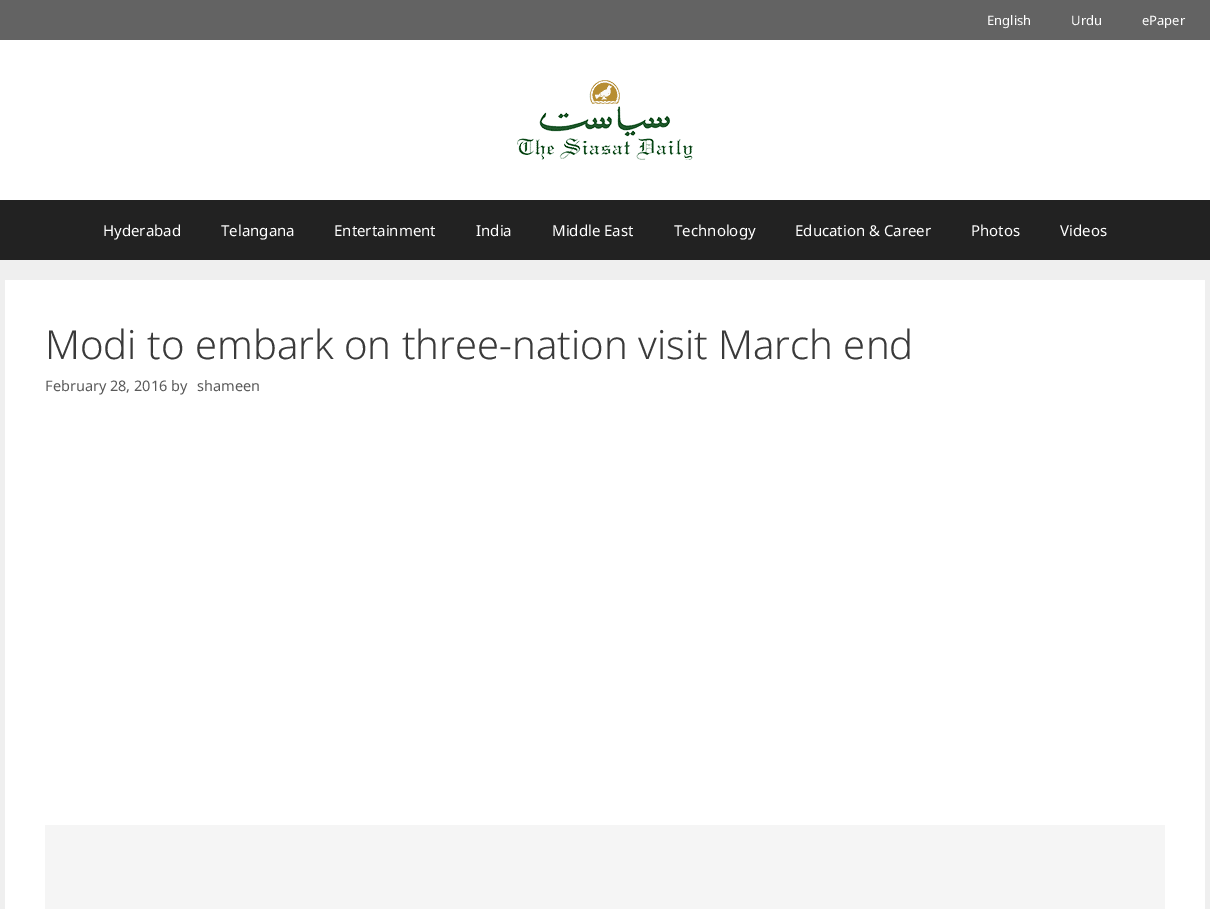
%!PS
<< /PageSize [1210 909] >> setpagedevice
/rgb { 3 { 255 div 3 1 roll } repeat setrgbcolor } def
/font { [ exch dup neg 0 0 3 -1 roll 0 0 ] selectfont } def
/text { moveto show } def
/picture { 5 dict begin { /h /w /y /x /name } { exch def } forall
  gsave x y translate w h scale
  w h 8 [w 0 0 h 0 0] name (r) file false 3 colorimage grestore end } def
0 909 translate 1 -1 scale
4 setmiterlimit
239 239 239 rgb
0 0 1210 909 rectfill
99 99 99 rgb
0 0 1210 40 rectfill
255 255 255 rgb
0 40 1210 160 rectfill
(img_01.rgb) 517 80 176 80 picture
34 34 34 rgb
0 200 1210 60 rectfill
255 255 255 rgb
5 280 1200 629 rectfill
245 245 245 rgb
45 825 1120 84 rectfill
/NotoSans-Regular 13 font
255 255 255 rgb
(English) 987 25 text
(Urdu) 1071 25 text
(ePaper) 1142 25 text
/NotoSans-Regular 15 font
(Hyderabad) 103 236 text
(Telangana) 221 236 text
(Entertainment) 334 236 text
(India) 476 236 text
(Middle East) 552 236 text
(Technology) 674 236 text
(Education & Career) 795 236 text
(Photos) 971 236 text
(Videos) 1060 236 text
/NotoSans-Light 40 font
58 58 58 rgb
(Modi to embark on three-nation visit March end) 45 359 text
/NotoSans-Regular 14.5 font
89 89 89 rgb
(February 28, 2016 by) 45 391 text
(shameen) 197 391 text
showpage
